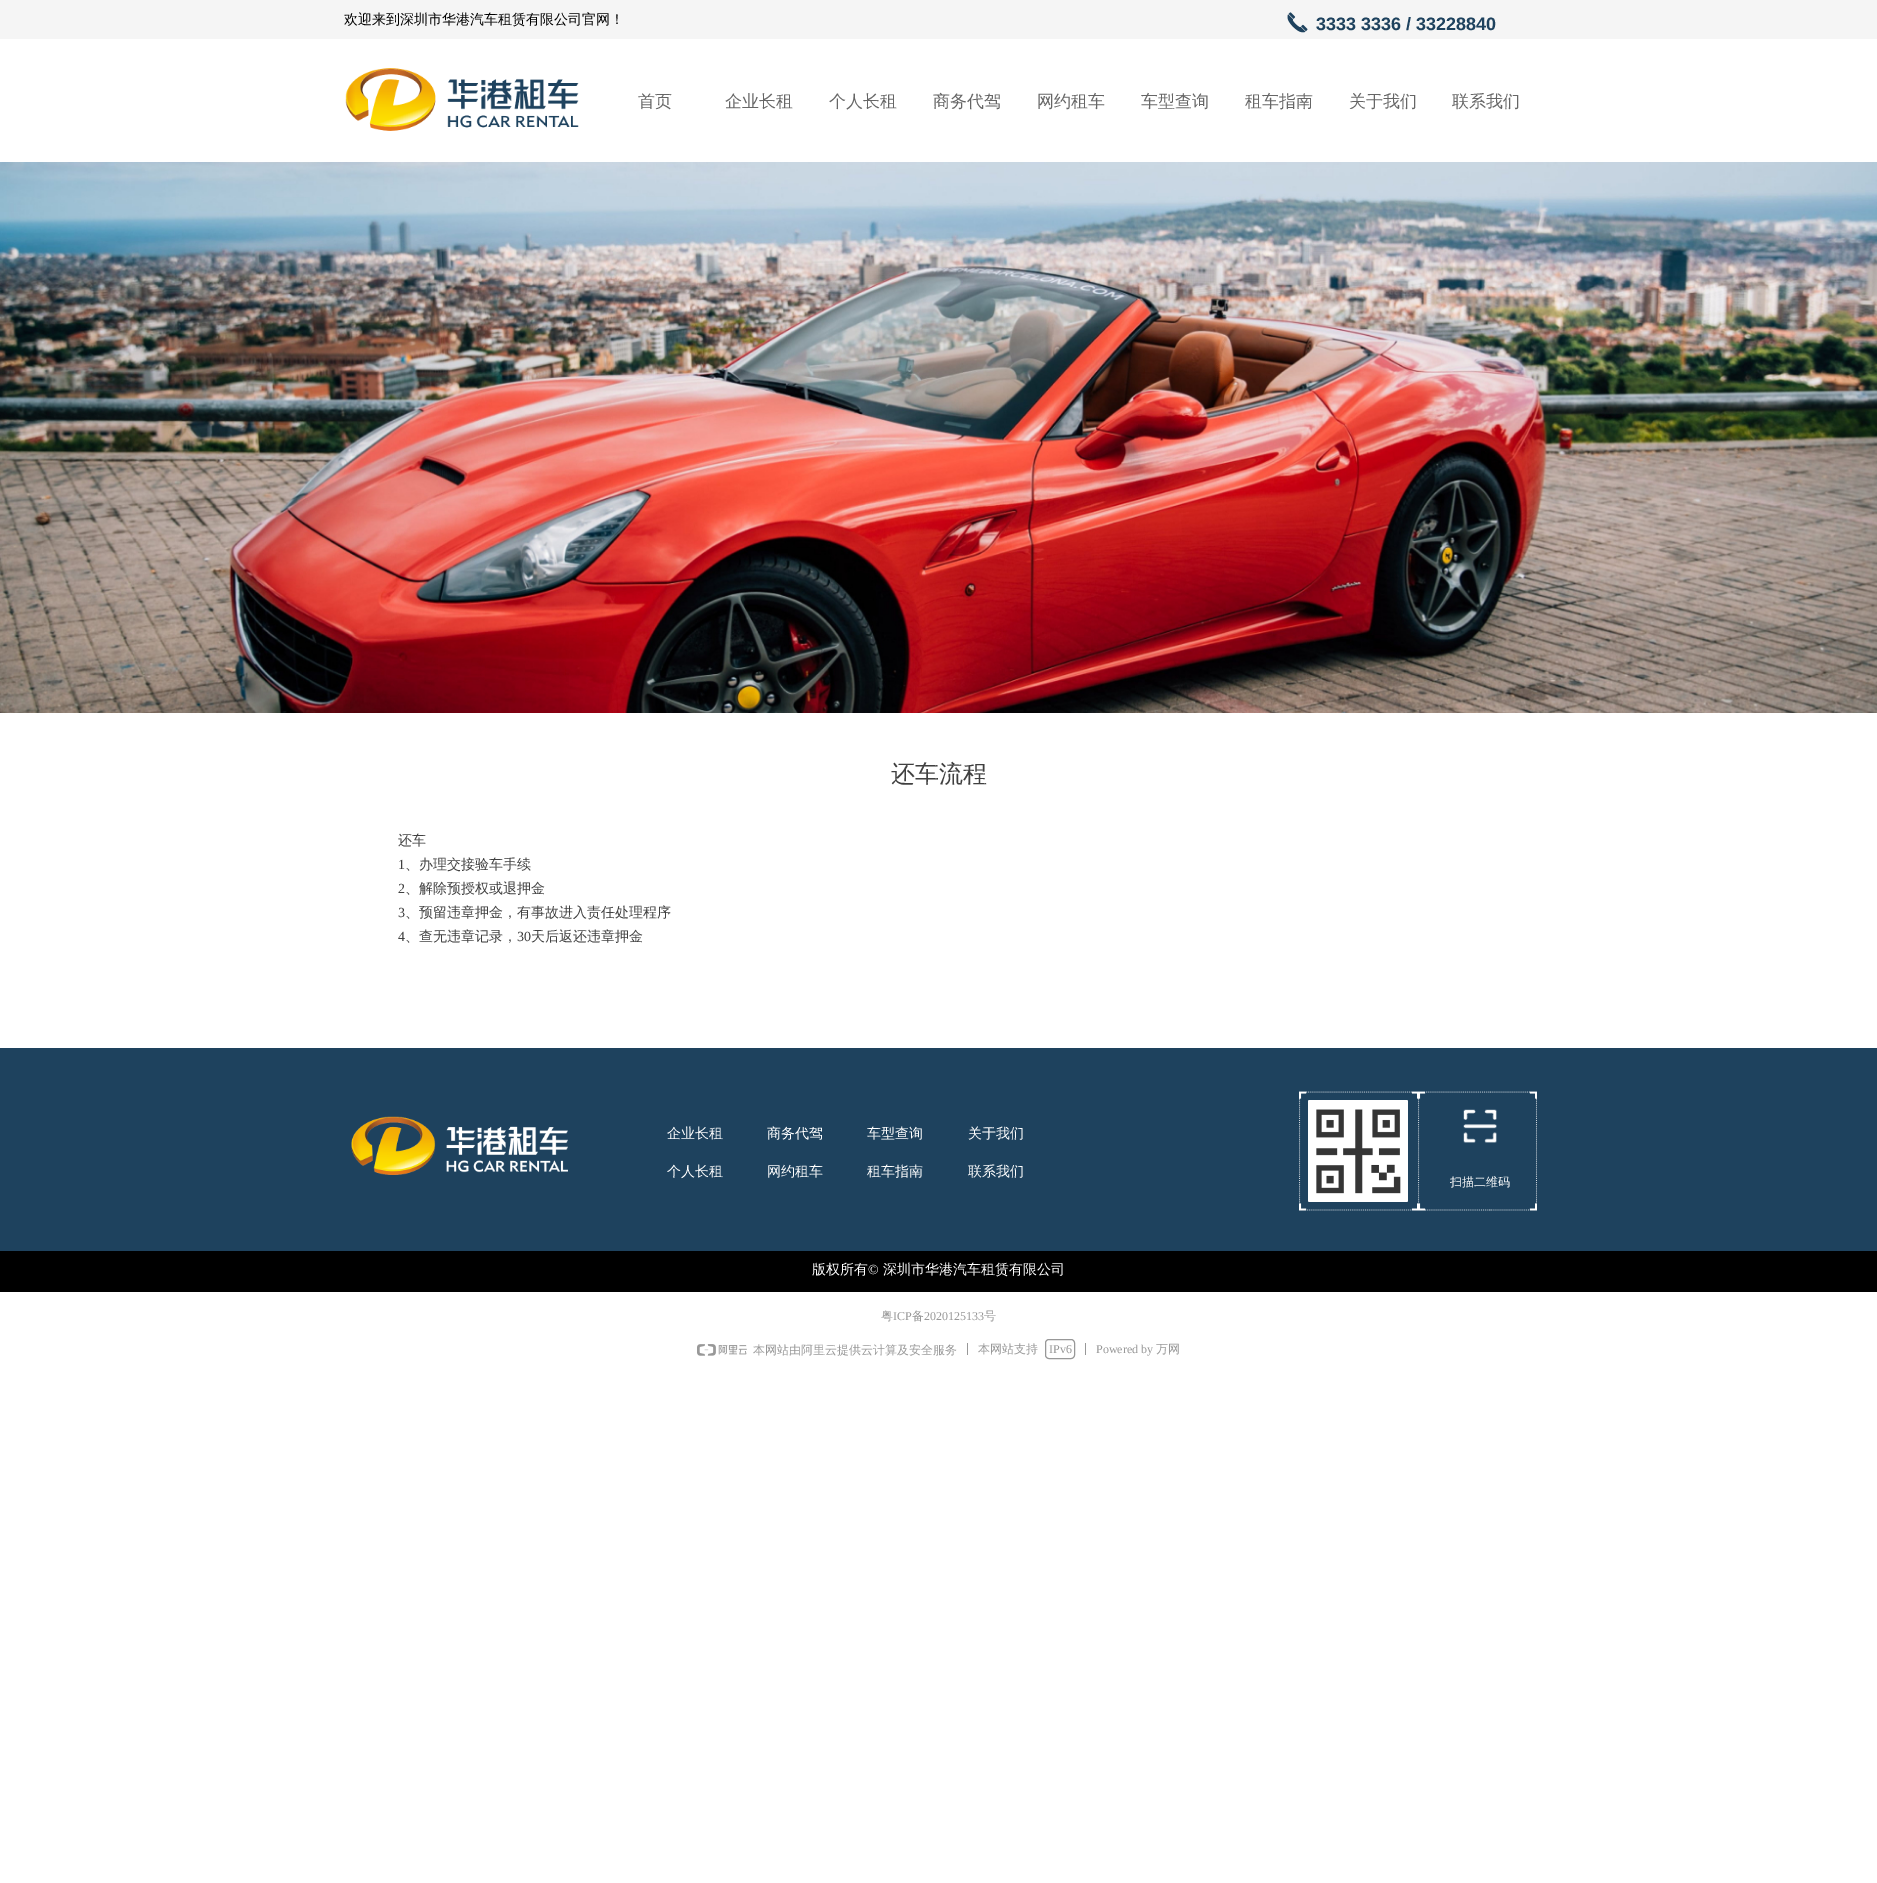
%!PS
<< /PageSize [1877 1883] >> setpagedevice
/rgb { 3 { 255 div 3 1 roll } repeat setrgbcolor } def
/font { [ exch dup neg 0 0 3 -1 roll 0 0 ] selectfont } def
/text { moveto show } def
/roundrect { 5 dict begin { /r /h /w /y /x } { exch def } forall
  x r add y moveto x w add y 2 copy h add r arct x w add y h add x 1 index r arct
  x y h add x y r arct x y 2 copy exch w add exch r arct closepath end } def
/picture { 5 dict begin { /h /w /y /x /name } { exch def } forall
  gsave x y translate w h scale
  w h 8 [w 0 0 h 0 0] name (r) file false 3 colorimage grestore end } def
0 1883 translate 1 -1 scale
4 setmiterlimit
255 255 255 rgb
0 0 1877 1883 rectfill
245 245 245 rgb
0 0 1877 39 rectfill
(img_01.rgb) 1287 12 21 21 picture
(img_02.rgb) 345 68 234 63 picture
(img_03.rgb) 0 162 1877 551 picture
30 66 94 rgb
0 1048 1877 203 rectfill
(img_04.rgb) 351 1116 217 59 picture
(img_05.rgb) 1299 1091 238 120 picture
(img_06.rgb) 1308 1100 100 102 picture
0 0 0 rgb
0 1251 1877 41 rectfill
(img_07.rgb) 697 1344 50 12 picture
152 152 152 rgb
967 1343 1 12 rectfill
1045.5 1339.5 29 19 3.5 roundrect stroke
1085 1343 1 12 rectfill
/WenQuanYiZenHei-Medium 14 font
0 0 0 rgb
(欢迎来到深圳市华港汽车租赁有限公司官网！) 344 24 text
/LiberationSans-Bold 18 font
30 66 94 rgb
(3333 3336 / 33228840) 1316 30 text
/WenQuanYiZenHei-Medium 17 font
102 102 102 rgb
(首页) 638 107 text
(企业长租) 725 107 text
(个人长租) 829 107 text
(商务代驾) 933 107 text
(网约租车) 1037 107 text
(车型查询) 1141 107 text
(租车指南) 1245 107 text
(关于我们) 1349 107 text
(联系我们) 1452 107 text
/WenQuanYiZenHei-Medium 24 font
64 64 64 rgb
(还车流程) 891 782 text
/WenQuanYiZenHei-Medium 14 font
(还车) 398 845 text
/LiberationSerif-Regular 14 font
(1) 398 869 text
/WenQuanYiZenHei-Medium 14 font
(、办理交接验车手续) 405 869 text
/LiberationSerif-Regular 14 font
(2) 398 893 text
/WenQuanYiZenHei-Medium 14 font
(、解除预授权或退押金) 405 893 text
/LiberationSerif-Regular 14 font
(3) 398 917 text
/WenQuanYiZenHei-Medium 14 font
(、预留违章押金，有事故进入责任处理程序) 405 917 text
/LiberationSerif-Regular 14 font
(4) 398 941 text
/WenQuanYiZenHei-Medium 14 font
(、查无违章记录，) 405 941 text
/LiberationSerif-Regular 14 font
(30) 517 941 text
/WenQuanYiZenHei-Medium 14 font
(天后返还违章押金) 531 941 text
255 255 255 rgb
(企业长租) 667 1138 text
(个人长租) 667 1176 text
(商务代驾) 767 1138 text
(网约租车) 767 1176 text
(车型查询) 867 1138 text
(租车指南) 867 1176 text
(关于我们) 968 1138 text
(联系我们) 968 1176 text
/WenQuanYiZenHei-Medium 12 font
(扫描二维码) 1450 1186 text
/WenQuanYiZenHei-Medium 14 font
(版权所有) 812 1274 text
/LiberationSerif-Regular 14 font
(©) 868 1274 text
/WenQuanYiZenHei-Medium 14 font
(深圳市华港汽车租赁有限公司) 883 1274 text
/WenQuanYiZenHei-Medium 12 font
152 152 152 rgb
(粤) 881 1320 text
/LiberationSerif-Regular 12 font
(ICP) 893 1320 text
/WenQuanYiZenHei-Medium 12 font
(备) 912 1320 text
/LiberationSerif-Regular 12 font
(2020125133) 924 1320 text
/WenQuanYiZenHei-Medium 12 font
(号) 984 1320 text
(本网站由阿里云提供云计算及安全服务) 753 1354 text
(本网站支持) 978 1353 text
/LiberationSerif-Regular 12 font
(IPv6) 1049 1353 text
(Powered by) 1096 1353 text
/WenQuanYiZenHei-Medium 12 font
(万网) 1156 1353 text
showpage
